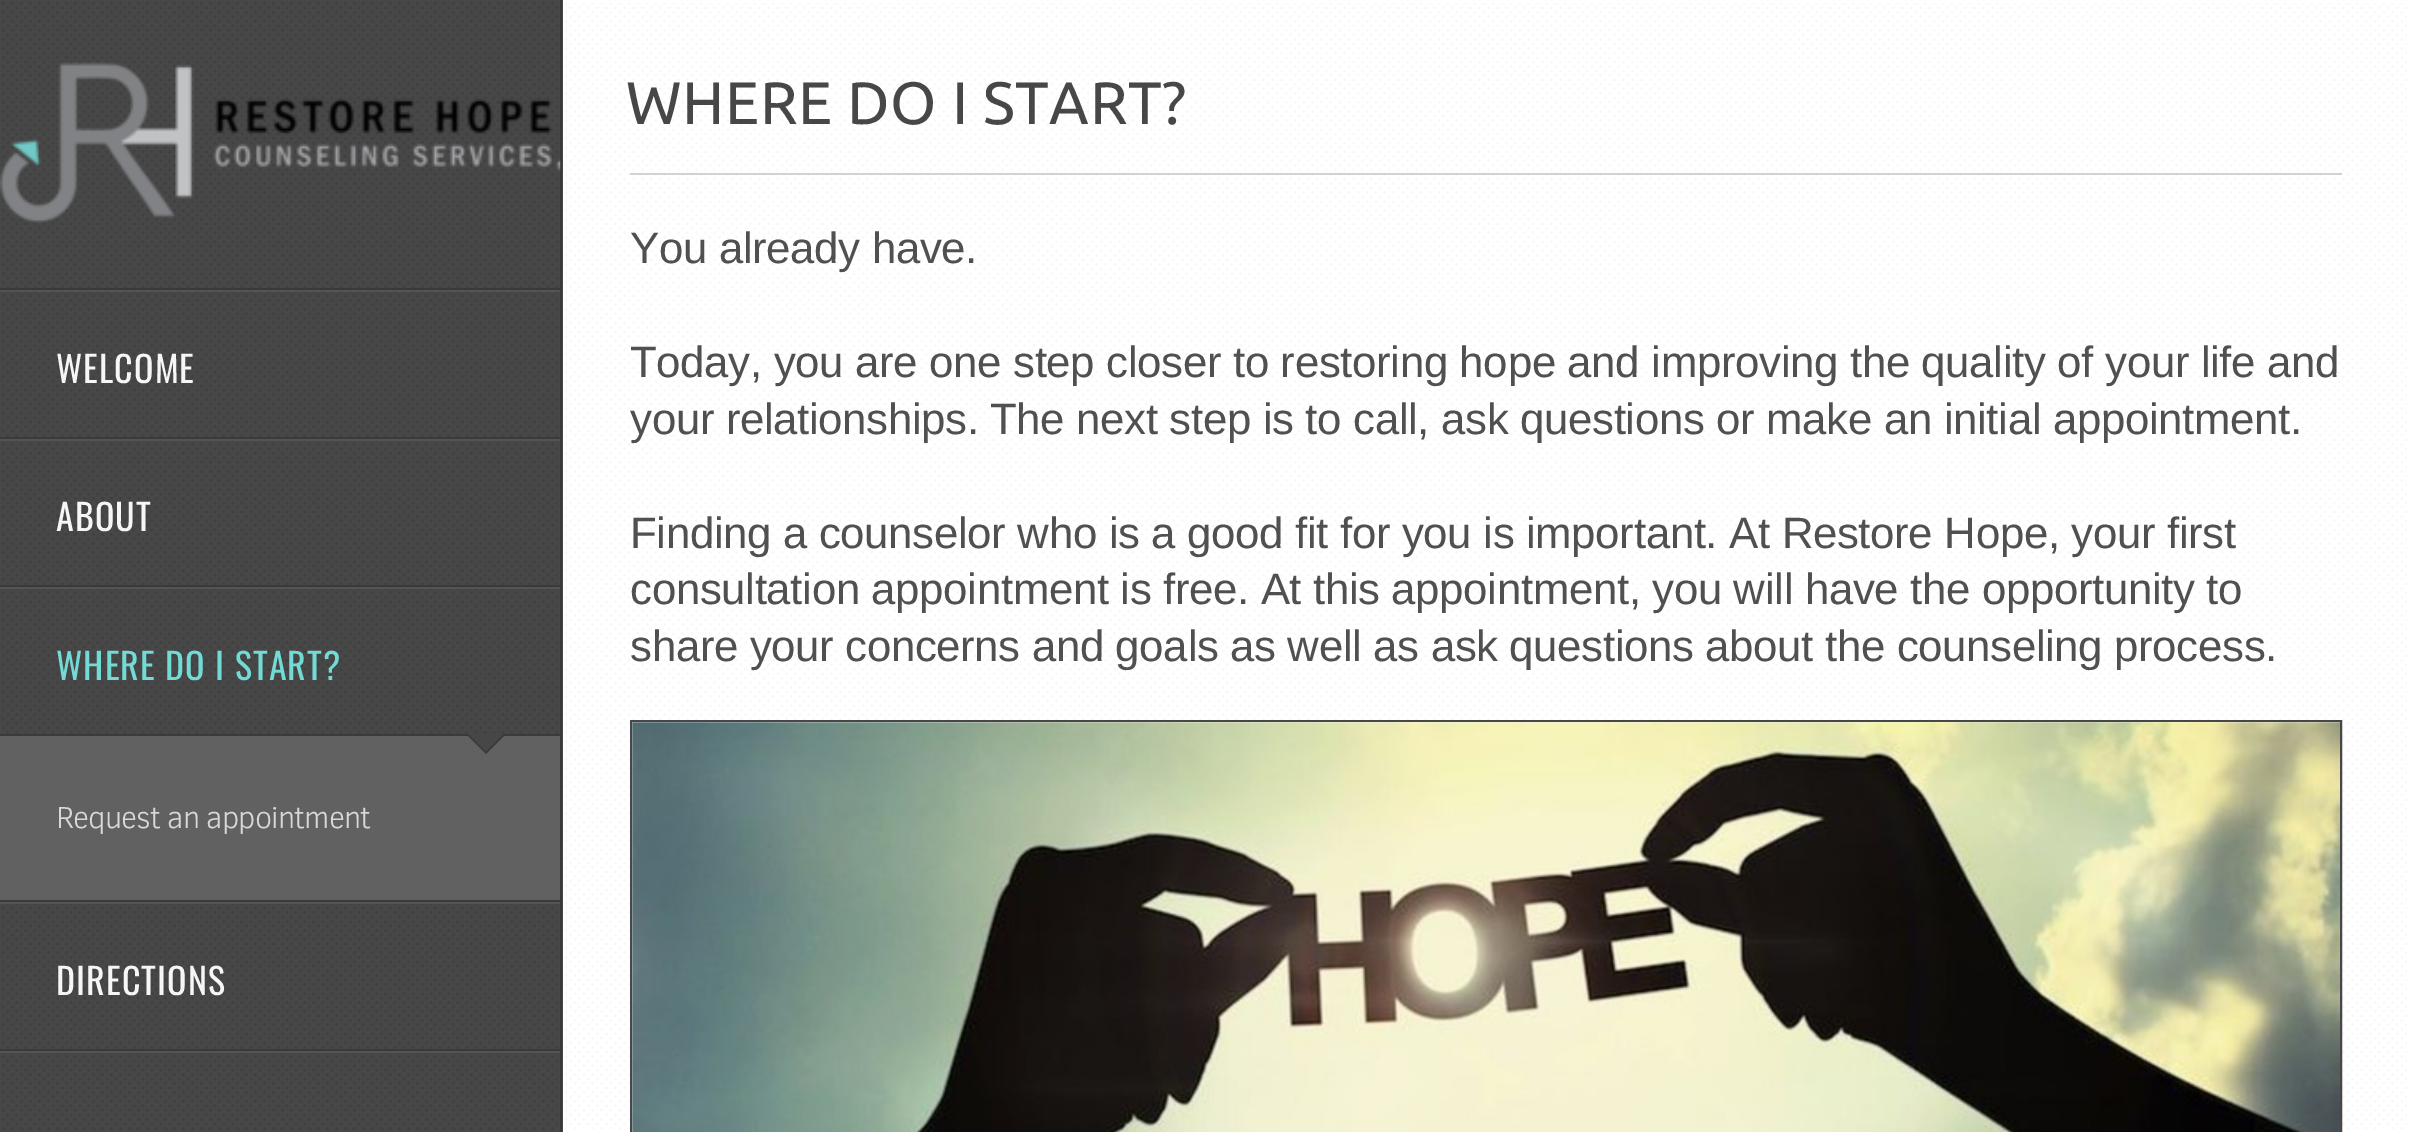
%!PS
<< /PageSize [2409 1132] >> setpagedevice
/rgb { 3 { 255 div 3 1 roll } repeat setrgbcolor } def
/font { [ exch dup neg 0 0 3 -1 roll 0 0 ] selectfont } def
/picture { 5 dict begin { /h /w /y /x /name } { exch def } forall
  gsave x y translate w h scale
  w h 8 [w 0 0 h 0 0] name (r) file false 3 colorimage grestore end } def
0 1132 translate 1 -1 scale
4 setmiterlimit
71 71 71 rgb
0 0 2409 1132 rectfill
(img_01.rgb) 2 2 557 286 picture
58 58 58 rgb
560 0 2 1132 rectfill
0 288 560 2 rectfill
(img_02.rgb) 0 62 561 161 picture
(img_03.rgb) 2 292 556 145 picture
84 84 84 rgb
0 290 560 2 rectfill
58 58 58 rgb
0 437 560 2 rectfill
(img_04.rgb) 2 441 556 144 picture
84 84 84 rgb
0 439 560 2 rectfill
58 58 58 rgb
0 585 560 2 rectfill
(img_05.rgb) 2 589 556 145 picture
84 84 84 rgb
0 587 560 2 rectfill
58 58 58 rgb
0 900 560 2 rectfill
97 97 97 rgb
0 736 560 164 rectfill
58 58 58 rgb
468 736 moveto 36 0 rlineto -18 18 rlineto closepath fill
0 734 560 2 rectfill
71 71 71 rgb
468 733.5 moveto 36 0 rlineto -18 18 rlineto closepath fill
(img_05.rgb) 2 904 556 145 picture
84 84 84 rgb
0 902 560 2 rectfill
58 58 58 rgb
0 1049 560 2 rectfill
(img_06.rgb) 2 1053 556 77 picture
84 84 84 rgb
0 1051 560 2 rectfill
255 255 255 rgb
563 0 1846 1132 rectfill
(img_07.rgb) 565 3 1842 1126 picture
209 209 209 rgb
630 173 1712 2 rectfill
71 71 71 rgb
2 setlinewidth
631 721 1710 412 rectstroke
(img_08.rgb) 632 722 1708 410 picture
/Oswald-Regular 36 font
246 246 246 rgb
56 383 moveto 1.1 0 (WELCOME) ashow
56 531 moveto 1.1 0 (ABOUT) ashow
114 219 214 rgb
56 680 moveto 1.1 0 (WHERE DO I START?) ashow
/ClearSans-Light 31 font
216 216 216 rgb
56 828 moveto -0.9 0 (Request an appointment) ashow
/Oswald-Regular 36 font
246 246 246 rgb
56 995 moveto 1.1 0 (DIRECTIONS) ashow
/Ubuntu-Regular 59.75 font
71 71 71 rgb
626 124 moveto 0.6 0 (WHERE DO I START?) ashow
/LiberationSans-Regular 43.8 font
80 80 80 rgb
630 263 moveto -0.35 0 (You already have.) ashow
630 377 moveto -0.35 0 (Today, you are one step closer to restoring hope and improving the quality of your life and) ashow
630 434 moveto -0.35 0 (your relationships.) ashow
990 434 moveto -0.35 0 (The next step is to call, ask questions or make an initial appointment.) ashow
630 548 moveto -0.35 0 (Finding a counselor who is a good fit for you is important. At Restore Hope, your first) ashow
630 604 moveto -0.1 0 32 -0.35 0 (consultation appointment is free. At this appointment, you will have the opportunity to) awidthshow
630 661 moveto -0.1 0 32 -0.35 0 (share your concerns and goals as well as ask questions about the counseling process.) awidthshow
showpage
